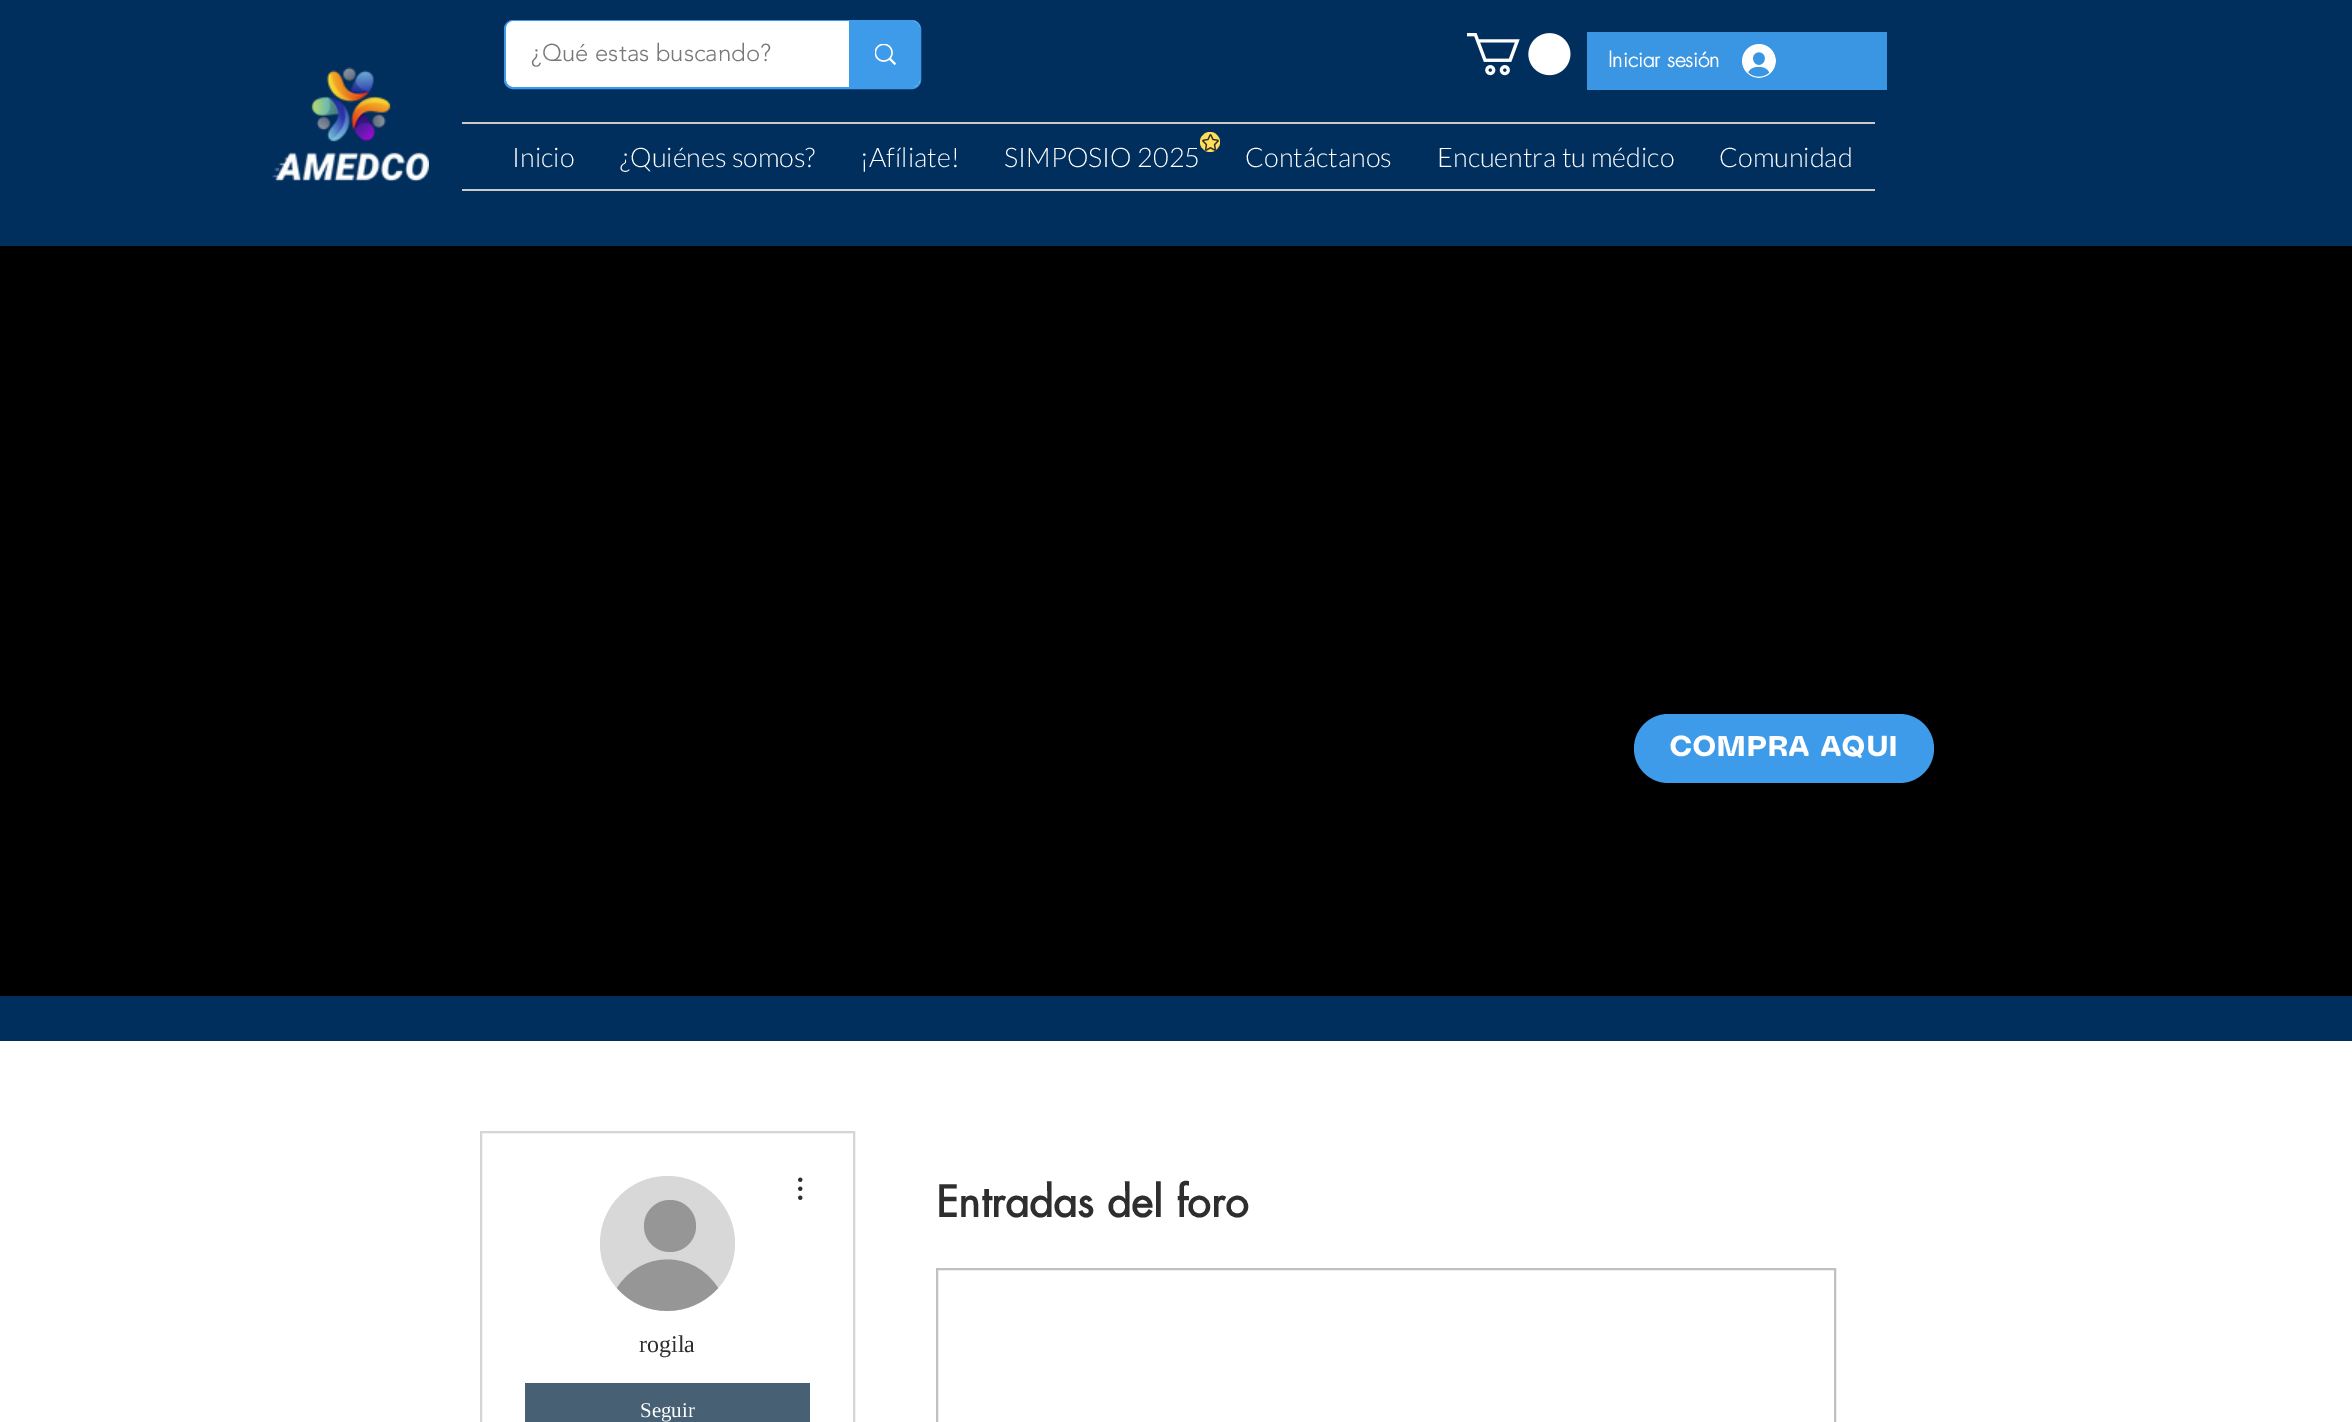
%!PS
<< /PageSize [2352 1422] >> setpagedevice
/rgb { 3 { 255 div 3 1 roll } repeat setrgbcolor } def
/font { [ exch dup neg 0 0 3 -1 roll 0 0 ] selectfont } def
/text { moveto show } def
/circle { newpath 0 360 arc closepath } def
/roundrect { 5 dict begin { /r /h /w /y /x } { exch def } forall
  x r add y moveto x w add y 2 copy h add r arct x w add y h add x 1 index r arct
  x y h add x y r arct x y 2 copy exch w add exch r arct closepath end } def
/picture { 5 dict begin { /h /w /y /x /name } { exch def } forall
  gsave x y translate w h scale
  w h 8 [w 0 0 h 0 0] name (r) file false 3 colorimage grestore end } def
0 1422 translate 1 -1 scale
4 setmiterlimit
255 255 255 rgb
0 0 2352 1422 rectfill
0 46 93 rgb
0 0 2352 1041 rectfill
61 155 233 rgb
2 setlinewidth
505 21 415 67 8 roundrect stroke
255 255 255 rgb
506 21 414 66 8 roundrect fill
61 155 233 rgb
849 21 moveto 63 0 rlineto 4.5 0 8 3.5 8 8 rcurveto 0 50 rlineto 0 4.5 -3.5 8 -8 8 rcurveto -63 0 rlineto closepath fill
(img_01.rgb) 875 44 21 21 picture
(img_02.rgb) 1467 33 104 43 picture
58 150 226 rgb
1587 32 300 58 rectfill
(img_03.rgb) 1742 44 34 34 picture
(img_04.rgb) 272 67 157 114 picture
255 222 89 rgb
1210 142 10 circle fill
(img_05.rgb) 1202 134 17 17 picture
202 202 202 rgb
462 122 1413 2 rectfill
462 189 1413 2 rectfill
0 0 0 rgb
0 246 2352 750 rectfill
61 155 233 rgb
1634 714 300 69 34.5 roundrect fill
193 192 192 rgb
937 1269 898 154 rectstroke
213 213 213 rgb
481 1132 373 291 rectstroke
216 216 216 rgb
667.5 1243.5 67.5 circle fill
150 150 150 rgb
670 1226 26 circle fill
718 1288 moveto -27 30 -74 31 -101 0 rcurveto 24 -38 77 -38 101 0 rcurveto closepath fill
(img_06.rgb) 798 1177 5 23 picture
71 96 116 rgb
525 1383 285 39 rectfill
/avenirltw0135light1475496-Light 24 font
120 120 120 rgb
(¿Qué estas buscando?) 531 61 text
/futura-Bold 21 font
255 255 255 rgb
(Iniciar sesión) 1608 67 text
/Lato-Light 27 font
(Inicio) 512 167 text
(¿Quiénes somos?) 620 167 text
(¡Afíliate!) 860 167 text
(SIMPOSIO 2025) 1004 167 text
(Contáctanos) 1245 167 text
(Encuentra tu médico) 1437 167 text
(Comunidad) 1719 167 text
gsave
1670 735 228 27 rectclip
/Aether-Bold 28.5 font
1670 756 moveto 1.5 0 (COMPRA AQUÍ) ashow
grestore
/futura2-Bold 42 font
47 46 46 rgb
(Entradas del foro) 936 1217 text
/LiberationSerif-Regular 24 font
(rogila) 639 1352 text
/LiberationSerif-Regular 21 font
255 255 255 rgb
(Seguir) 640 1417 text
showpage
